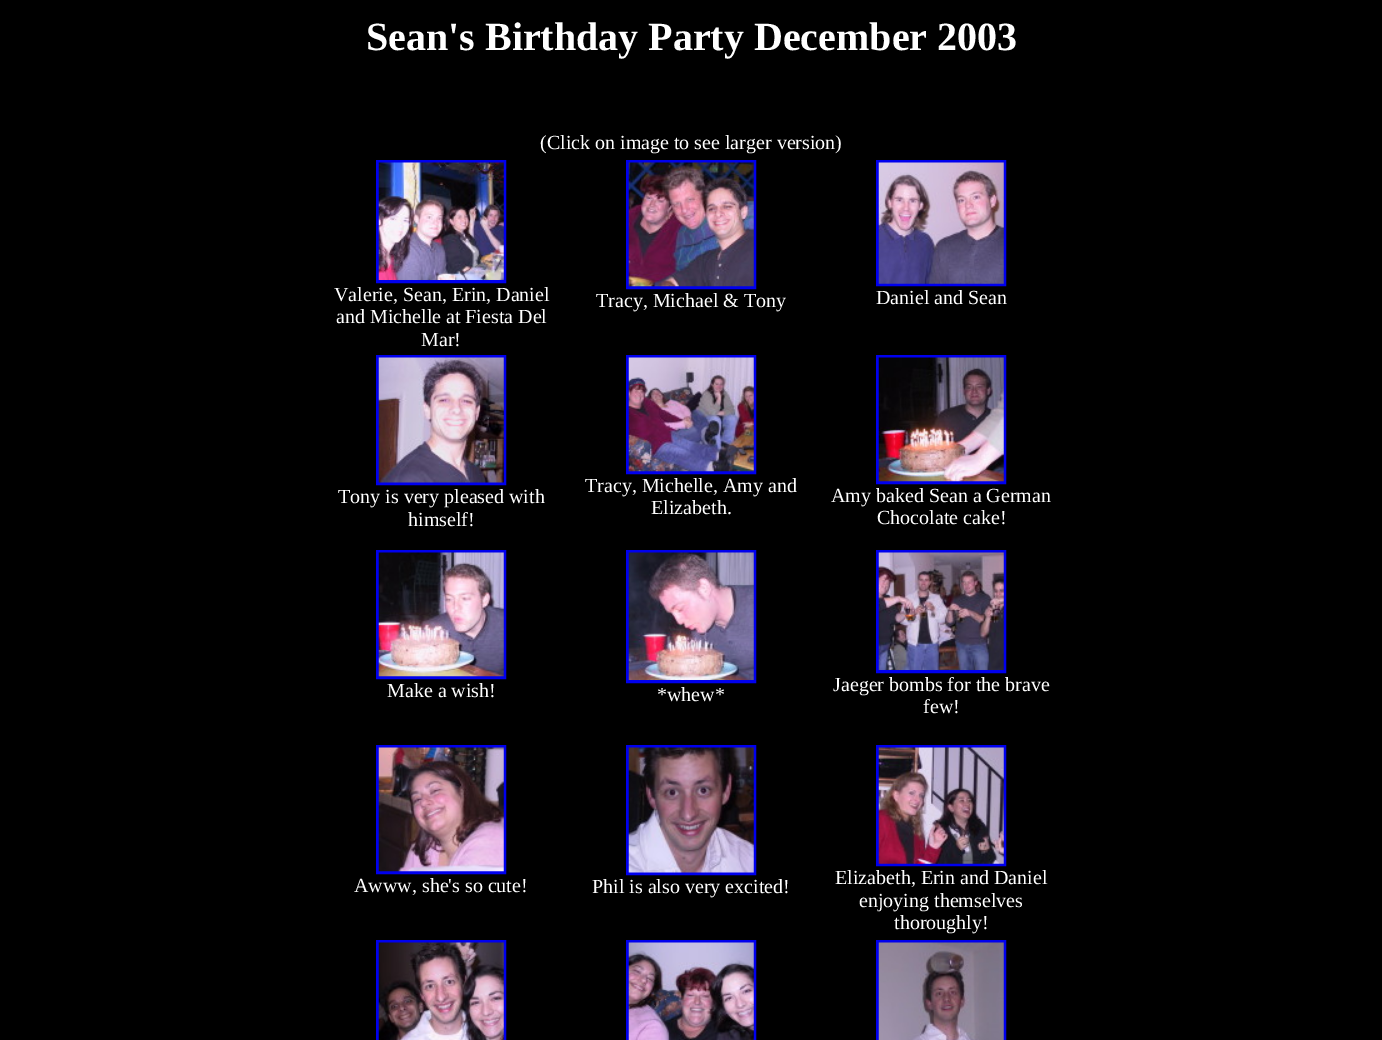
%!PS
<< /PageSize [1382 1040] >> setpagedevice
/rgb { 3 { 255 div 3 1 roll } repeat setrgbcolor } def
/font { [ exch dup neg 0 0 3 -1 roll 0 0 ] selectfont } def
/text { moveto show } def
/picture { 5 dict begin { /h /w /y /x /name } { exch def } forall
  gsave x y translate w h scale
  w h 8 [w 0 0 h 0 0] name (r) file false 3 colorimage grestore end } def
0 1040 translate 1 -1 scale
4 setmiterlimit
0 0 0 rgb
0 0 1382 1040 rectfill
0 0 238 rgb
3 setlinewidth
377.5 161.5 127 120 rectstroke
(img_01.rgb) 378 162 126 118 picture
627.5 161.5 127 126 rectstroke
(img_02.rgb) 628 162 126 125 picture
877.5 161.5 127 123 rectstroke
(img_03.rgb) 878 162 126 122 picture
377.5 356.5 127 127 rectstroke
(img_04.rgb) 378 357 126 126 picture
627.5 356.5 127 116 rectstroke
(img_05.rgb) 628 357 126 115 picture
877.5 356.5 127 126 rectstroke
(img_06.rgb) 878 357 126 125 picture
377.5 551.5 127 126 rectstroke
(img_07.rgb) 378 552 126 125 picture
627.5 551.5 127 130 rectstroke
(img_08.rgb) 628 552 126 128 picture
877.5 551.5 127 120 rectstroke
(img_09.rgb) 878 552 126 118 picture
377.5 746.5 127 126 rectstroke
(img_10.rgb) 378 747 126 125 picture
627.5 746.5 127 127 rectstroke
(img_11.rgb) 628 747 126 126 picture
877.5 746.5 127 118 rectstroke
(img_12.rgb) 878 747 126 117 picture
377.5 941.5 127 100 rectstroke
(img_13.rgb) 378 942 126 98 picture
627.5 941.5 127 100 rectstroke
(img_14.rgb) 628 942 126 98 picture
877.5 941.5 127 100 rectstroke
(img_15.rgb) 878 942 126 98 picture
/LiberationSerif-Bold 40 font
255 255 255 rgb
(Sean's Birthday Party December 2003) 366 50 text
/LiberationSerif-Regular 20 font
(\(Click on image to see larger version\)) 540 149 text
(Valerie, Sean, Erin, Daniel) 334 301 text
(and Michelle at Fiesta Del) 336 323 text
(Mar!) 421 346 text
(Tracy, Michael & Tony) 596 307 text
(Daniel and Sean) 876 304 text
(Tony is very pleased with) 338 503 text
(himself!) 408 526 text
(Tracy, Michelle, Amy and) 585 492 text
(Elizabeth.) 651 514 text
(Amy baked Sean a German) 831 502 text
(Chocolate cake!) 877 524 text
(Make a wish!) 387 697 text
(*whew*) 657 701 text
(Jaeger bombs for the brave) 833 691 text
(few!) 923 713 text
(Awww, she's so cute!) 354 892 text
(Phil is also very excited!) 592 893 text
(Elizabeth, Erin and Daniel) 835 884 text
(enjoying themselves) 859 907 text
(thoroughly!) 894 929 text
showpage
